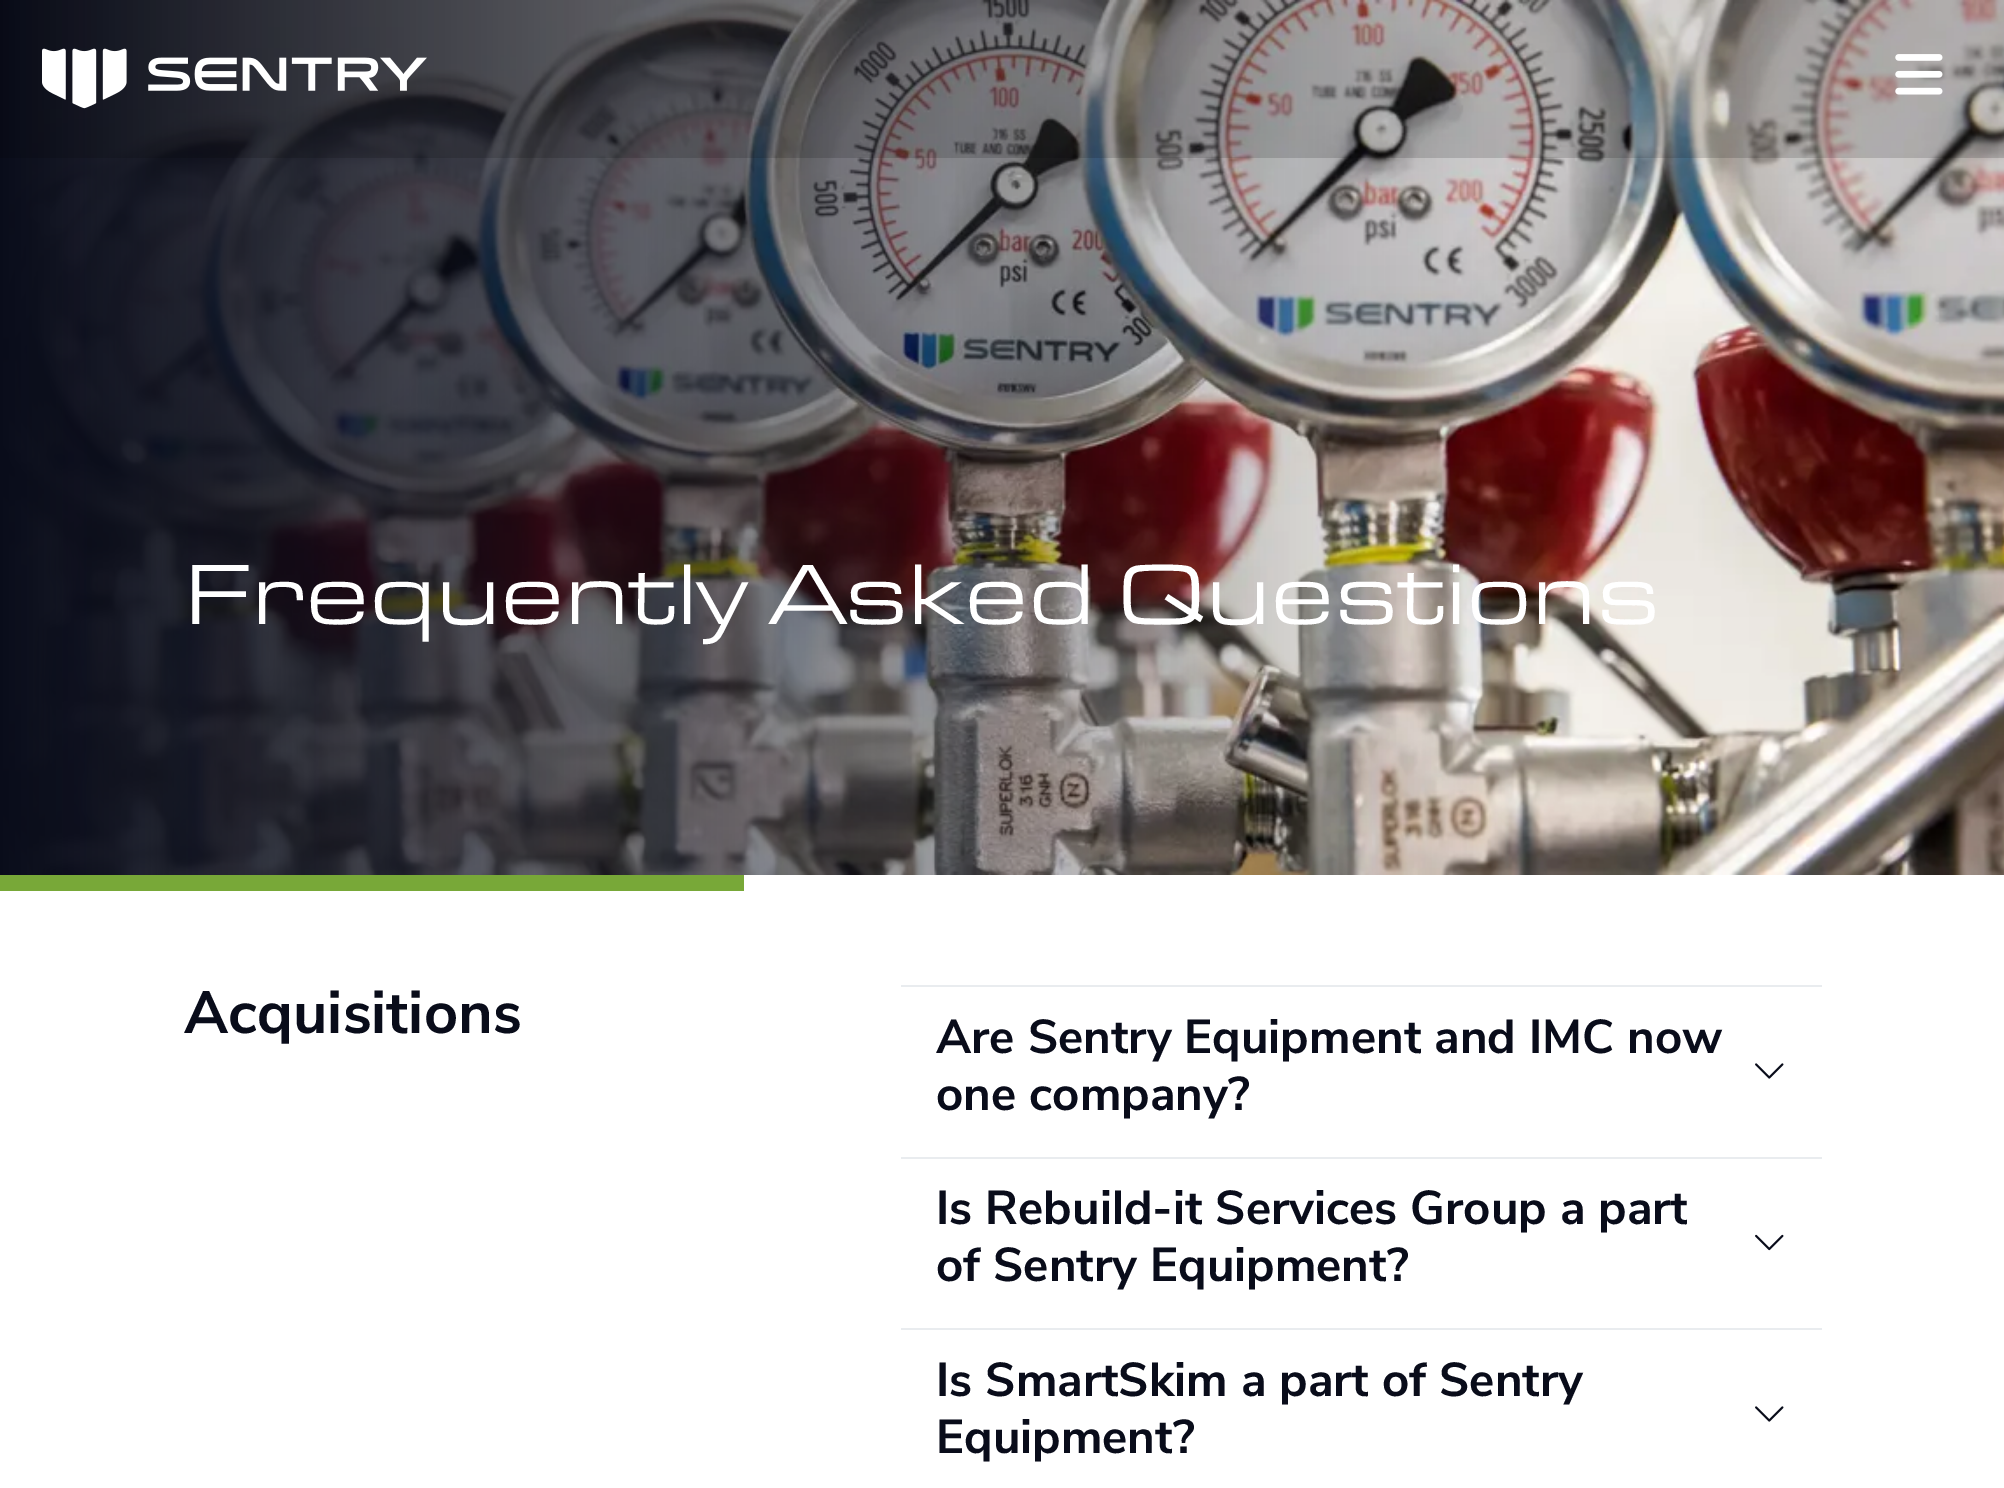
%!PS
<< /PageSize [2004 1488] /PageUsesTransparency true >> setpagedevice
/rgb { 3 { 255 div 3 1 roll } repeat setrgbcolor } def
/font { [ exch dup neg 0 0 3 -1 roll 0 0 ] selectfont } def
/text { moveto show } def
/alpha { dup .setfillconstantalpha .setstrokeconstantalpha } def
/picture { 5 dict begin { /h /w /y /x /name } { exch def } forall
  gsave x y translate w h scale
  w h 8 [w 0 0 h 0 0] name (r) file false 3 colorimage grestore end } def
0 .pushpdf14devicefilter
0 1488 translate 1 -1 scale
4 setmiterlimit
255 255 255 rgb
0 0 2004 1488 rectfill
(img_03.rgb) 0 0 2004 875 picture
0.15 alpha
0 0 0 rgb
0 0 2004 158 rectfill
1 alpha
(img_01.rgb) 42 48 385 61 picture
(img_02.rgb) 1895 54 48 41 picture
120 168 56 rgb
0 875 744 16 rectfill
233 236 239 rgb
901 985 921 2 rectfill
901 1157 921 2 rectfill
(img_04.rgb) 1755 1063 29 16 picture
901 1328 921 2 rectfill
(img_05.rgb) 1755 1234 29 17 picture
(img_04.rgb) 1755 1406 29 16 picture
/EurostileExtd-Regular 88.3 font
255 255 255 rgb
(Frequently Asked Questions) 184 624 text
/NunitoSans-Bold 59.5 font
9 12 26 rgb
(Acquisitions) 184 1033 text
/NunitoSans-Bold 47.5 font
(Are Sentry Equipment and IMC now) 936 1053 text
(one company?) 936 1110 text
(Is Rebuild-it Services Group a part) 936 1224 text
(of Sentry Equipment?) 936 1281 text
(Is SmartSkim a part of Sentry) 936 1396 text
(Equipment?) 936 1453 text
.poppdf14devicefilter showpage
